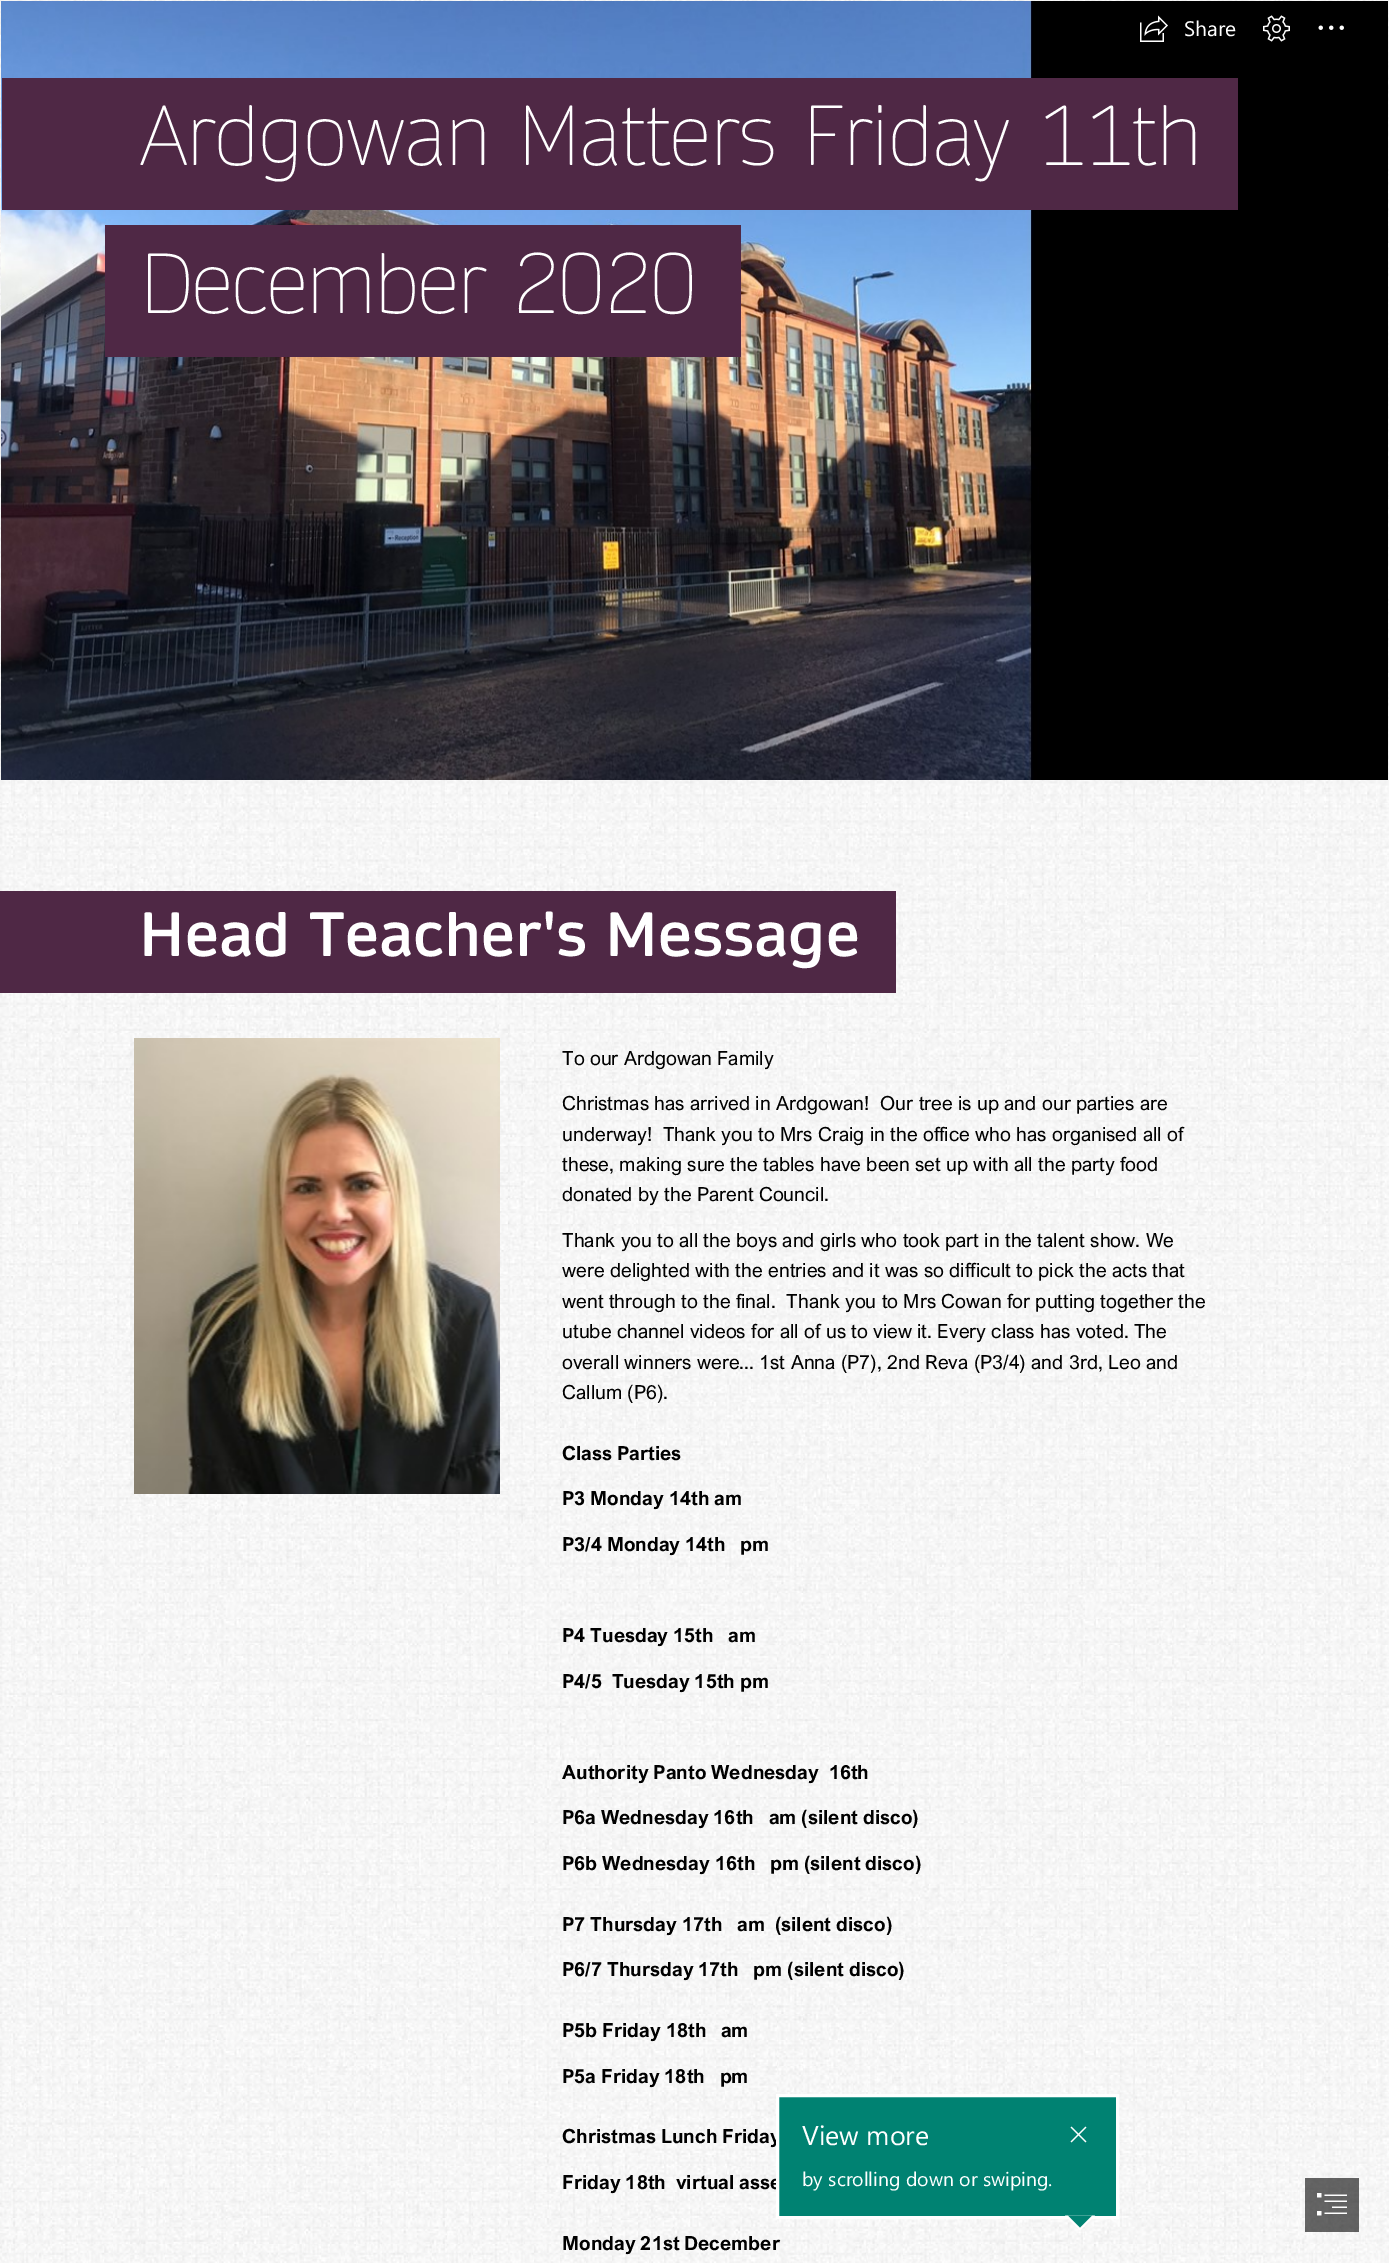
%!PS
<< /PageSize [1389 2263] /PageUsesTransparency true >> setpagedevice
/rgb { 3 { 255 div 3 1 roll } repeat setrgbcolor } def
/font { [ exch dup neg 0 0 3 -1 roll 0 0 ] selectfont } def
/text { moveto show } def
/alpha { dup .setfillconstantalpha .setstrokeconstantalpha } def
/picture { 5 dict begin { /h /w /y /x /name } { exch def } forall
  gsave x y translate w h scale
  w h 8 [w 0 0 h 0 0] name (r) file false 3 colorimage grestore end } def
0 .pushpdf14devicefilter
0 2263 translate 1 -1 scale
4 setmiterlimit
234 234 234 rgb
0 0 1389 2263 rectfill
(img_04.rgb) 0 0 1389 2263 picture
(img_05.rgb) 1 1 1387 779 picture
(img_01.rgb) 1140 15 28 27 picture
(img_02.rgb) 1263 15 27 27 picture
(img_03.rgb) 1318 25 26 5 picture
79 40 69 rgb
2 78 1236 132 rectfill
105 225 636 132 rectfill
0 891 896 102 rectfill
(img_06.rgb) 134 1038 366 456 picture
0.6 alpha
0 0 0 rgb
1305 2178 54 54 rectfill
1 alpha
(img_08.rgb) 1317 2193 30 23 picture
/SegoeUI-Regular 21 font
255 255 255 rgb
(Share) 1184 36 text
/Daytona-Thin 81.4 font
140 165 moveto -1.3 0 (Ardgowan Matters Friday 11th) ashow
140 313 moveto -2.4 0 (December 2020) ashow
/Daytona-SemiBold 59.75 font
(Head Teacher's Message) 139 956 text
/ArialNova-Regular 19.5 font
0 0 0 rgb
(To our Ardgowan Family) 562 1065 text
(Christmas has arrived in Ardgowan!  Our tree is up and our parties are) 562 1110 text
(underway!  Thank you to Mrs Craig in the office who has organised all of) 562 1141 text
(these, making sure the tables have been set up with all the party food) 562 1171 text
(donated by the Parent Council.) 562 1201 text
(Thank you to all the boys and girls who took part in the talent show. We) 562 1247 text
(were delighted with the entries and it was so difficult to pick the acts that) 562 1277 text
(went through to the final.  Thank you to Mrs Cowan for putting together the) 562 1308 text
(utube channel videos for all of us to view it. Every class has voted. The) 562 1338 text
(overall winners were... 1st Anna \(P7\), 2nd Reva \(P3/4\) and 3rd, Leo and) 562 1369 text
(Callum \(P6\).) 562 1399 text
/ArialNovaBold-Bold 19.5 font
(Class Parties) 562 1460 text
(P3 Monday 14th am) 562 1505 text
(P3/4 Monday 14th   pm) 562 1551 text
(P4 Tuesday 15th   am) 562 1642 text
(P4/5  Tuesday 15th pm) 562 1688 text
(Authority Panto Wednesday  16th) 562 1779 text
(P6a Wednesday 16th   am \(silent disco\)) 562 1824 text
(P6b Wednesday 16th   pm \(silent disco\)) 562 1870 text
(P7 Thursday 17th   am  \(silent disco\)) 562 1931 text
(P6/7 Thursday 17th   pm \(silent disco\)) 562 1976 text
(P5b Friday 18th   am) 562 2037 text
(P5a Friday 18th   pm) 562 2083 text
(Christmas Lunch Friday) 562 2143 text
(Friday 18th  virtual asse) 562 2189 text
(Monday 21st December) 562 2250 text
0 130 114 rgb
777.5 2095.5 moveto 340 0 rlineto 0 122 rlineto -340 0 rlineto closepath gsave fill grestore
255 255 255 rgb
3 setlinewidth
stroke
/SegoeUI-Regular 27 font
(View more) 802 2145 text
/SegoeUI-Regular 19.5 font
(by scrolling down or swiping.) 802 2186 text
(img_07.rgb) 1070 2126 17 17 picture
1065 2215.5 moveto 30 0 rlineto -15 15 rlineto closepath fill
0 130 114 rgb
1068 2215.5 moveto 24 0 rlineto -12 12 rlineto closepath fill
.poppdf14devicefilter showpage
